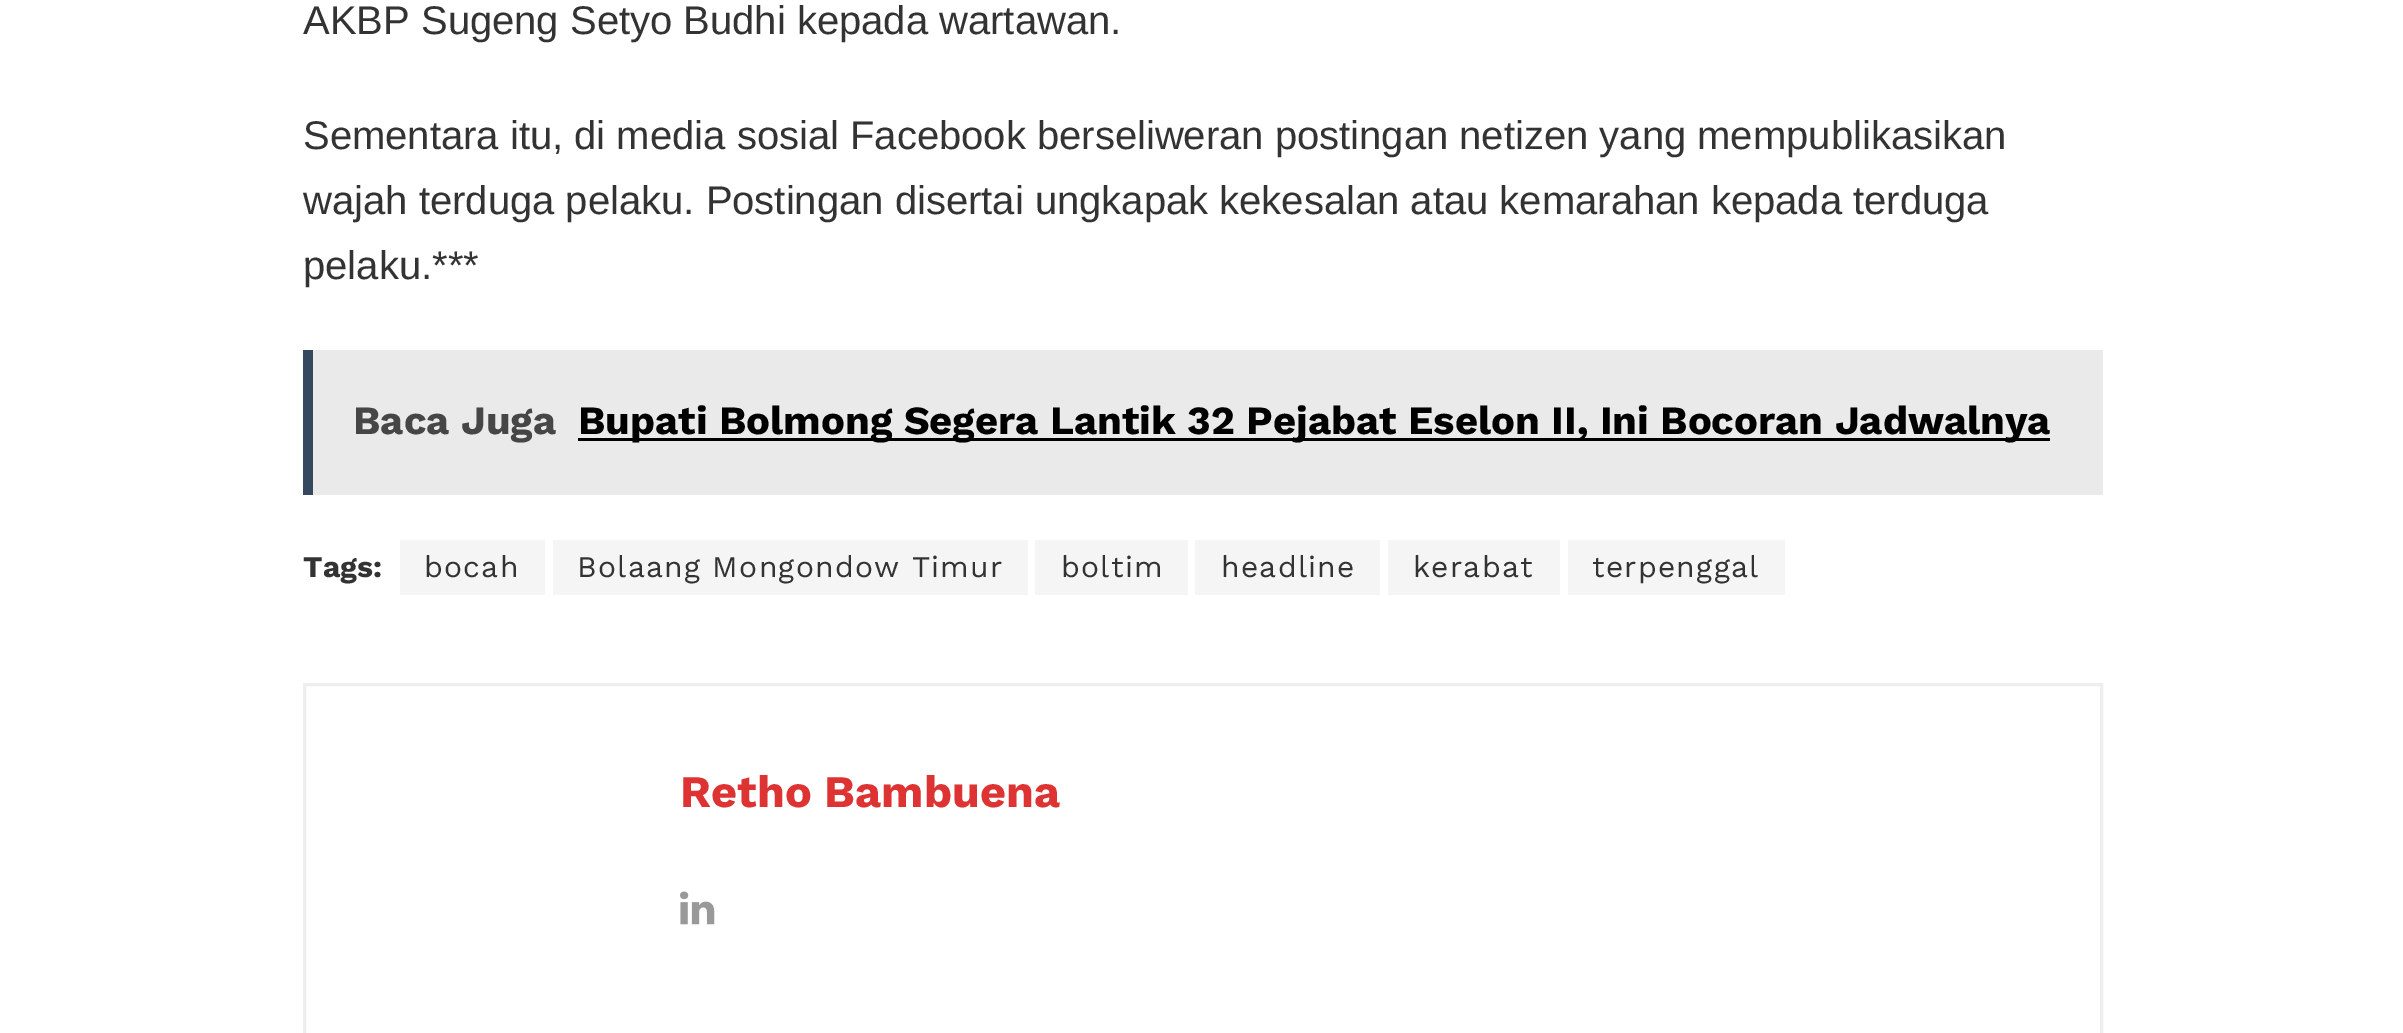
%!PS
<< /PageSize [2403 1033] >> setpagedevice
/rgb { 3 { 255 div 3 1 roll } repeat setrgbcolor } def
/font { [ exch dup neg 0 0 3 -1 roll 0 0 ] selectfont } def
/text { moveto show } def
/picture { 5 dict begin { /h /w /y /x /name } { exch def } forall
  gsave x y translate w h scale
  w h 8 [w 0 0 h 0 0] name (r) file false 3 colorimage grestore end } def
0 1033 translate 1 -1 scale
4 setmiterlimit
255 255 255 rgb
0 0 2403 1033 rectfill
234 234 234 rgb
313 350 1790 145 rectfill
52 73 94 rgb
303 350 10 145 rectfill
0 0 0 rgb
578 438 1472 3 rectfill
245 245 245 rgb
400 540 145 55 rectfill
553 540 475 55 rectfill
1035 540 153 55 rectfill
1195 540 185 55 rectfill
1388 540 172 55 rectfill
1568 540 217 55 rectfill
238 238 238 rgb
3 setlinewidth
304.5 684.5 1797 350 rectstroke
(img_01.rgb) 680 891 35 34 picture
/LiberationSans-Regular 40 font
51 51 51 rgb
(AKBP Sugeng Setyo Budhi kepada wartawan.) 303 34 text
(Sementara itu, di media sosial Facebook berseliweran postingan netizen yang mempublikasikan) 303 149 text
(wajah terduga pelaku. Postingan disertai ungkapak kekesalan atau kemarahan kepada terduga) 303 214 text
(pelaku.***) 303 279 text
/WorkSans-Bold 40 font
70 70 70 rgb
(Baca Juga) 353 434 text
0 0 0 rgb
(Bupati Bolmong Segera Lantik 32 Pejabat Eselon II, Ini Bocoran Jadwalnya) 578 434 text
/WorkSans-Bold 30 font
51 51 51 rgb
(Tags:) 303 577 text
/WorkSans-Regular 30 font
424 577 moveto 1.25 0 (bocah) ashow
577 577 moveto 1.25 0 (Bolaang Mongondow Timur) ashow
1061 577 moveto 1.25 0 (boltim) ashow
1221 577 moveto 1.25 0 (headline) ashow
1413 577 moveto 1.25 0 (kerabat) ashow
1592 577 moveto 1.25 0 (terpenggal) ashow
/WorkSans-Bold 45 font
221 51 51 rgb
(Retho Bambuena) 680 807 text
showpage
